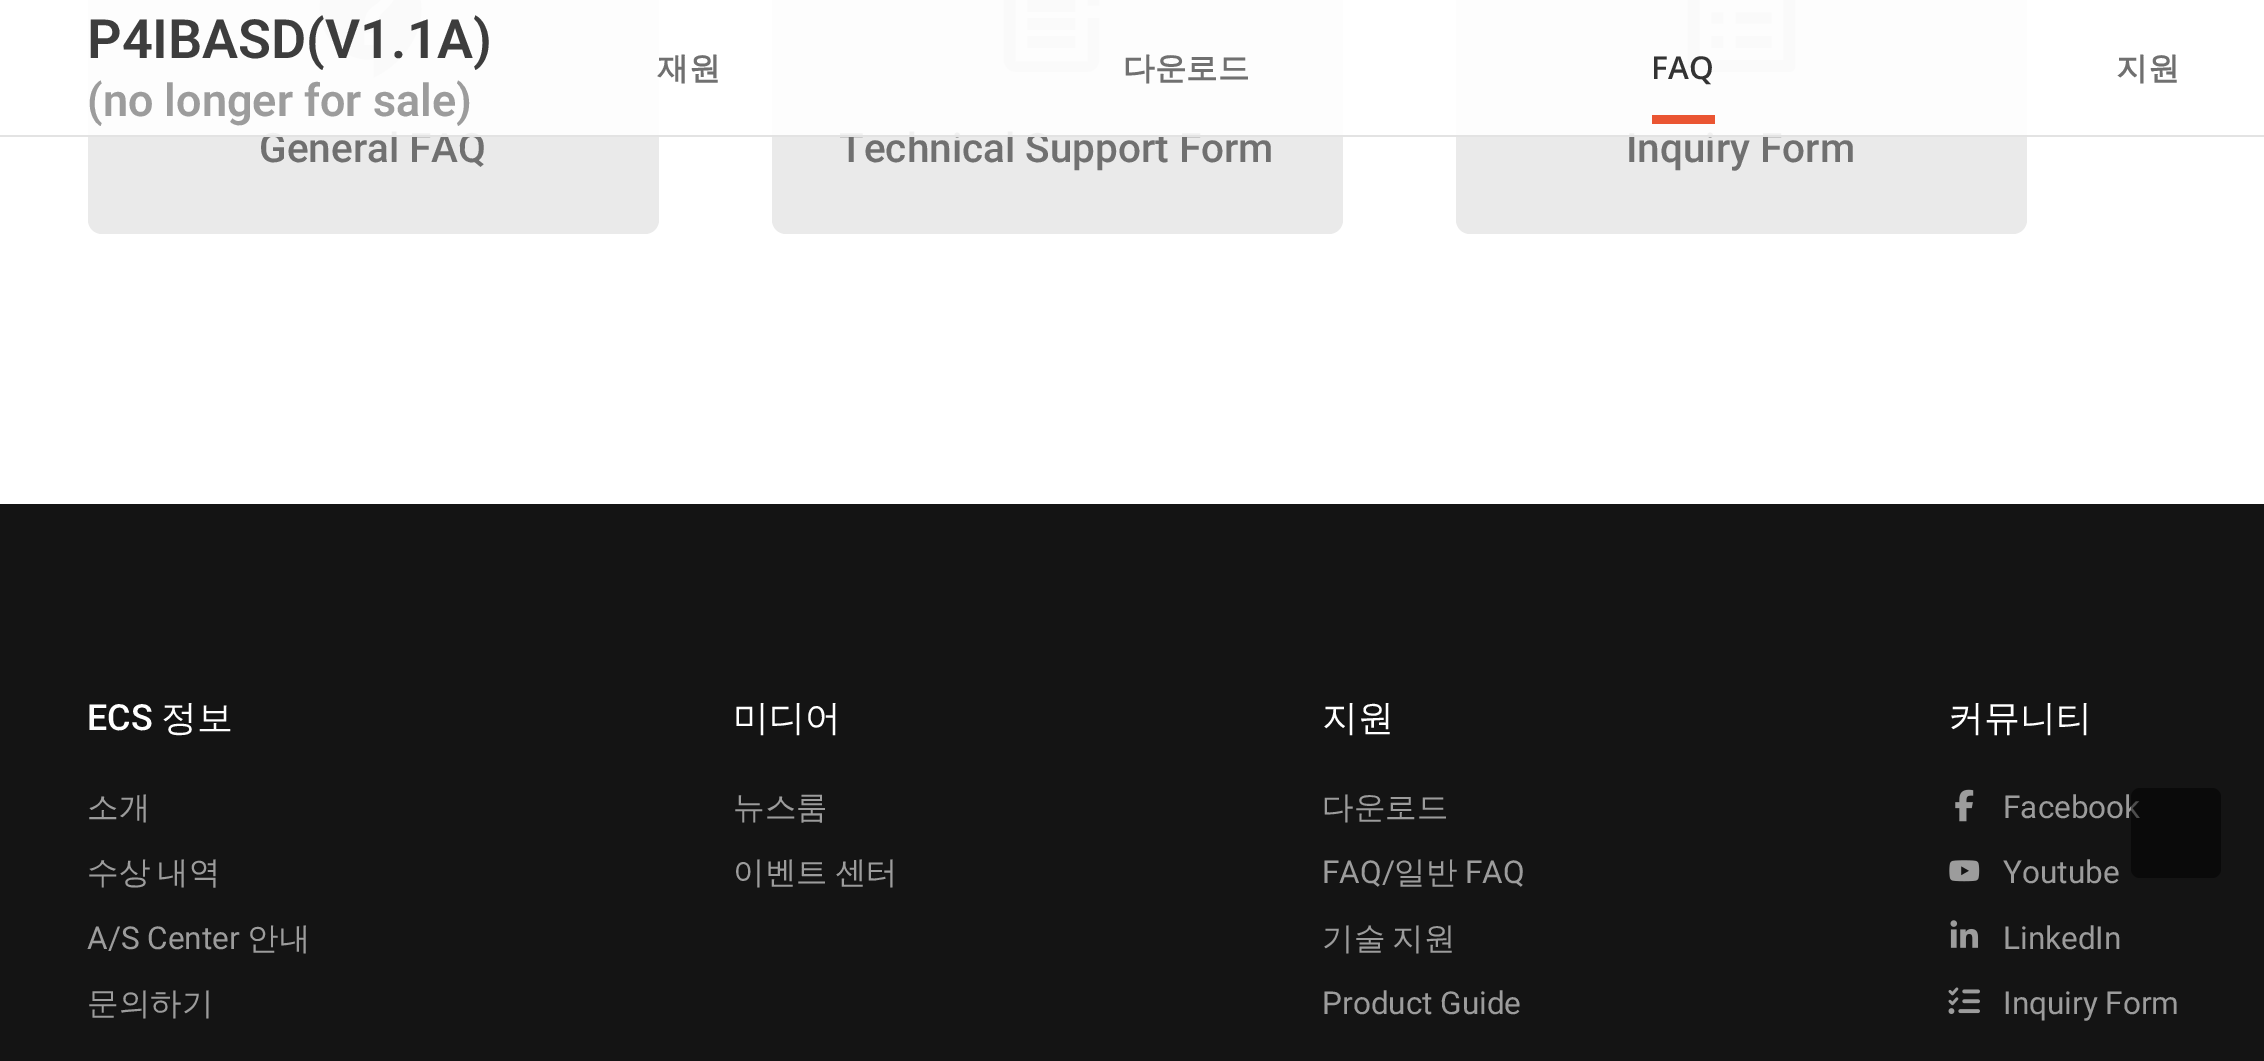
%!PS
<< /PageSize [2264 1061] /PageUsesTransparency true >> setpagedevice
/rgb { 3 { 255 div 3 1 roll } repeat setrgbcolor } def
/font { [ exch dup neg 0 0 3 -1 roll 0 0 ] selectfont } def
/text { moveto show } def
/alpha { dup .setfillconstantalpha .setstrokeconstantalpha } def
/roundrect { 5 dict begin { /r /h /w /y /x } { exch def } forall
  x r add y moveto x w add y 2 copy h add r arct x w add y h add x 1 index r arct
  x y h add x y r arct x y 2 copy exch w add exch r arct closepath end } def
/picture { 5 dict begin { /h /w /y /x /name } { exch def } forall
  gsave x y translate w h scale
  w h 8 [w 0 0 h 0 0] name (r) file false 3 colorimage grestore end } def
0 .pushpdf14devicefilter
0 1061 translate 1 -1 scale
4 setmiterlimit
255 255 255 rgb
0 0 2264 1061 rectfill
234 234 234 rgb
88 -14 571 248 14 roundrect fill
(img_01.rgb) 319 0 103 78 picture
772 -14 571 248 14 roundrect fill
(img_02.rgb) 1003 0 97 72 picture
1456 -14 571 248 14 roundrect fill
(img_03.rgb) 1687 0 109 72 picture
20 20 20 rgb
0 504 2264 557 rectfill
(img_04.rgb) 1955 789 19 33 picture
(img_05.rgb) 1949 860 31 22 picture
(img_06.rgb) 1950 920 29 28 picture
(img_07.rgb) 1948 987 32 27 picture
/WenQuanYiZenHei-Bold 31.5 font
112 112 112 rgb
(지원) 2116 79 text
/Roboto-Medium 40.5 font
(General FAQ) 259 162 text
(Technical Support Form) 839 162 text
(Inquiry Form) 1626 162 text
0.9 alpha
255 255 255 rgb
88 0 1939 135 rectfill
1 alpha
234 85 50 rgb
1652 115 63 9 rectfill
/OpenSans-SemiBold 31.5 font
51 51 51 rgb
(FAQ) 1651 79 text
/WenQuanYiZenHei-Bold 31.5 font
112 112 112 rgb
(다운로드) 1123 79 text
(재원) 657 79 text
/Roboto-SemiBold 45 font
156 156 156 rgb
(\(no longer for sale\)) 87 116 text
/Roboto-SemiBold 54 font
61 61 61 rgb
(P4IBASD\(V1.1A\)) 87 58 text
227 227 227 rgb
0 135 2264 2 rectfill
/Roboto-Medium 36 font
255 255 255 rgb
(ECS) 87 730 text
/WenQuanYiZenHei-Medium 36 font
(정보) 161 730 text
/WenQuanYiZenHei-Medium 31.5 font
156 156 156 rgb
(소개) 87 818 text
87 883 moveto -2 0 32 (수상 내역) widthshow
/Roboto-Regular 31.5 font
(A/S Center) 87 949 text
/WenQuanYiZenHei-Medium 31.5 font
(안내) 247 949 text
(문의하기) 87 1014 text
/WenQuanYiZenHei-Medium 36 font
255 255 255 rgb
(미디어) 733 730 text
/WenQuanYiZenHei-Medium 31.5 font
156 156 156 rgb
(뉴스룸) 733 818 text
733 883 moveto -2 0 32 (이벤트 센터) widthshow
/WenQuanYiZenHei-Medium 36 font
255 255 255 rgb
(지원) 1322 730 text
/WenQuanYiZenHei-Medium 31.5 font
156 156 156 rgb
(다운로드) 1322 818 text
/Roboto-Regular 31.5 font
(FAQ/) 1322 883 text
/WenQuanYiZenHei-Medium 31.5 font
(일반) 1394 883 text
/Roboto-Regular 31.5 font
(FAQ) 1465 883 text
/WenQuanYiZenHei-Medium 31.5 font
1322 949 moveto -2 0 32 (기술 지원) widthshow
/Roboto-Regular 31.5 font
(Product Guide) 1322 1014 text
/WenQuanYiZenHei-Medium 36 font
255 255 255 rgb
(커뮤니티) 1948 730 text
/Roboto-Regular 31.5 font
156 156 156 rgb
(Facebook) 2003 818 text
(Youtube) 2003 883 text
(LinkedIn) 2003 949 text
(Inquiry Form) 2003 1014 text
0.5 alpha
0 0 0 rgb
2131 788 90 90 9 roundrect fill
.poppdf14devicefilter showpage
